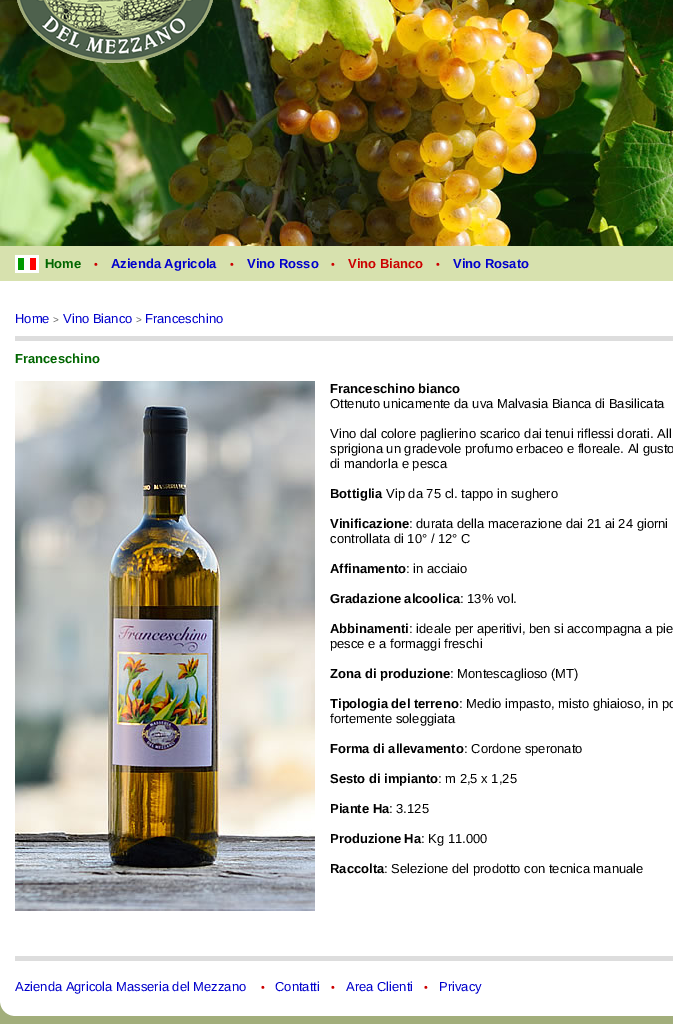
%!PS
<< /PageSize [673 1024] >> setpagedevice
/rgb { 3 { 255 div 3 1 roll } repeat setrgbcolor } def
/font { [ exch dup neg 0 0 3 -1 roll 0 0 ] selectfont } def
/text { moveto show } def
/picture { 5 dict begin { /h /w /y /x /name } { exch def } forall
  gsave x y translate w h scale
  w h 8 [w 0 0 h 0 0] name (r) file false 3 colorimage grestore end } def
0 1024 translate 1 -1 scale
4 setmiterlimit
162 174 123 rgb
0 0 673 1024 rectfill
(img_01.rgb) 0 0 673 246 picture
(img_02.rgb) 17 0 196 63 picture
215 225 174 rgb
0 246 673 35 rectfill
(img_03.rgb) 15 255 24 18 picture
255 255 255 rgb
0 281 673 735 rectfill
221 221 221 rgb
15 336 658 5 rectfill
(img_04.rgb) 15 381 300 530 picture
15 956 658 5 rectfill
(img_05.rgb) 0 1002 14 14 picture
/LiberationSans-Bold 13 font
0 102 0 rgb
(Home) 45 268 text
/LiberationSans-Regular 11 font
204 0 0 rgb
(•) 94 268 text
/LiberationSans-Bold 13 font
0 0 204 rgb
(Azienda Agricola) 111 268 text
/LiberationSans-Regular 11 font
204 0 0 rgb
(•) 230 268 text
/LiberationSans-Bold 13 font
0 0 204 rgb
(Vino Rosso) 247 268 text
/LiberationSans-Regular 11 font
204 0 0 rgb
(•) 331 268 text
/LiberationSans-Bold 13 font
(Vino Bianco) 348 268 text
/LiberationSans-Regular 11 font
(•) 436 268 text
/LiberationSans-Bold 13 font
0 0 204 rgb
(Vino Rosato) 453 268 text
/LiberationSans-Regular 13 font
(Home) 15 323 text
/LiberationSans-Regular 10 font
102 102 102 rgb
(>) 53 323 text
/LiberationSans-Regular 13 font
0 0 204 rgb
(Vino Bianco) 63 323 text
/LiberationSans-Regular 10 font
102 102 102 rgb
(>) 136 323 text
/LiberationSans-Regular 13 font
0 0 204 rgb
(Franceschino) 145 323 text
/LiberationSans-Bold 13 font
0 102 0 rgb
(Franceschino) 15 363 text
0 0 0 rgb
(Franceschino bianco) 330 393 text
/LiberationSans-Regular 13 font
(Ottenuto unicamente da uva Malvasia Bianca di Basilicata) 330 408 text
(Vino dal colore paglierino scarico dai tenui riflessi dorati. All) 330 438 text
(sprigiona un gradevole profumo erbaceo e floreale. Al gusto) 330 453 text
(di mandorla e pesca) 330 468 text
/LiberationSans-Bold 13 font
(Bottiglia) 330 498 text
/LiberationSans-Regular 13 font
(Vip da 75 cl. tappo in sughero) 386 498 text
/LiberationSans-Bold 13 font
(Vinificazione) 330 528 text
/LiberationSans-Regular 13 font
(: durata della macerazione dai 21 ai 24 giorni) 409 528 text
(controllata di 10° / 12° C) 330 543 text
/LiberationSans-Bold 13 font
(Affinamento) 330 573 text
/LiberationSans-Regular 13 font
(: in acciaio) 406 573 text
/LiberationSans-Bold 13 font
(Gradazione alcoolica) 330 603 text
/LiberationSans-Regular 13 font
(: 13% vol.) 460 603 text
/LiberationSans-Bold 13 font
(Abbinamenti) 330 633 text
/LiberationSans-Regular 13 font
(: ideale per aperitivi, ben si accompagna a pie) 409 633 text
(pesce e a formaggi freschi) 330 648 text
/LiberationSans-Bold 13 font
(Zona di produzione) 330 678 text
/LiberationSans-Regular 13 font
(: Montescaglioso \(MT\)) 450 678 text
/LiberationSans-Bold 13 font
(Tipologia del terreno) 330 708 text
/LiberationSans-Regular 13 font
(: Medio impasto, misto ghiaioso, in po) 459 708 text
(fortemente soleggiata) 330 723 text
/LiberationSans-Bold 13 font
(Forma di allevamento) 330 753 text
/LiberationSans-Regular 13 font
(: Cordone speronato) 464 753 text
/LiberationSans-Bold 13 font
(Sesto di impianto) 330 783 text
/LiberationSans-Regular 13 font
(: m 2,5 x 1,25) 438 783 text
/LiberationSans-Bold 13 font
(Piante Ha) 330 813 text
/LiberationSans-Regular 13 font
(: 3.125) 389 813 text
/LiberationSans-Bold 13 font
(Produzione Ha) 330 843 text
/LiberationSans-Regular 13 font
(: Kg 11.000) 421 843 text
/LiberationSans-Bold 13 font
(Raccolta) 330 873 text
/LiberationSans-Regular 13 font
(: Selezione del prodotto con tecnica manuale) 384 873 text
0 0 204 rgb
(Azienda Agricola Masseria del Mezzano) 15 991 text
/LiberationSans-Regular 11 font
204 0 0 rgb
(•) 261 991 text
/LiberationSans-Regular 13 font
0 0 204 rgb
(Contatti) 275 991 text
/LiberationSans-Regular 11 font
204 0 0 rgb
(•) 331 991 text
/LiberationSans-Regular 13 font
0 0 204 rgb
(Area Clienti) 346 991 text
/LiberationSans-Regular 11 font
204 0 0 rgb
(•) 424 991 text
/LiberationSans-Regular 13 font
0 0 204 rgb
(Privacy) 439 991 text
showpage
